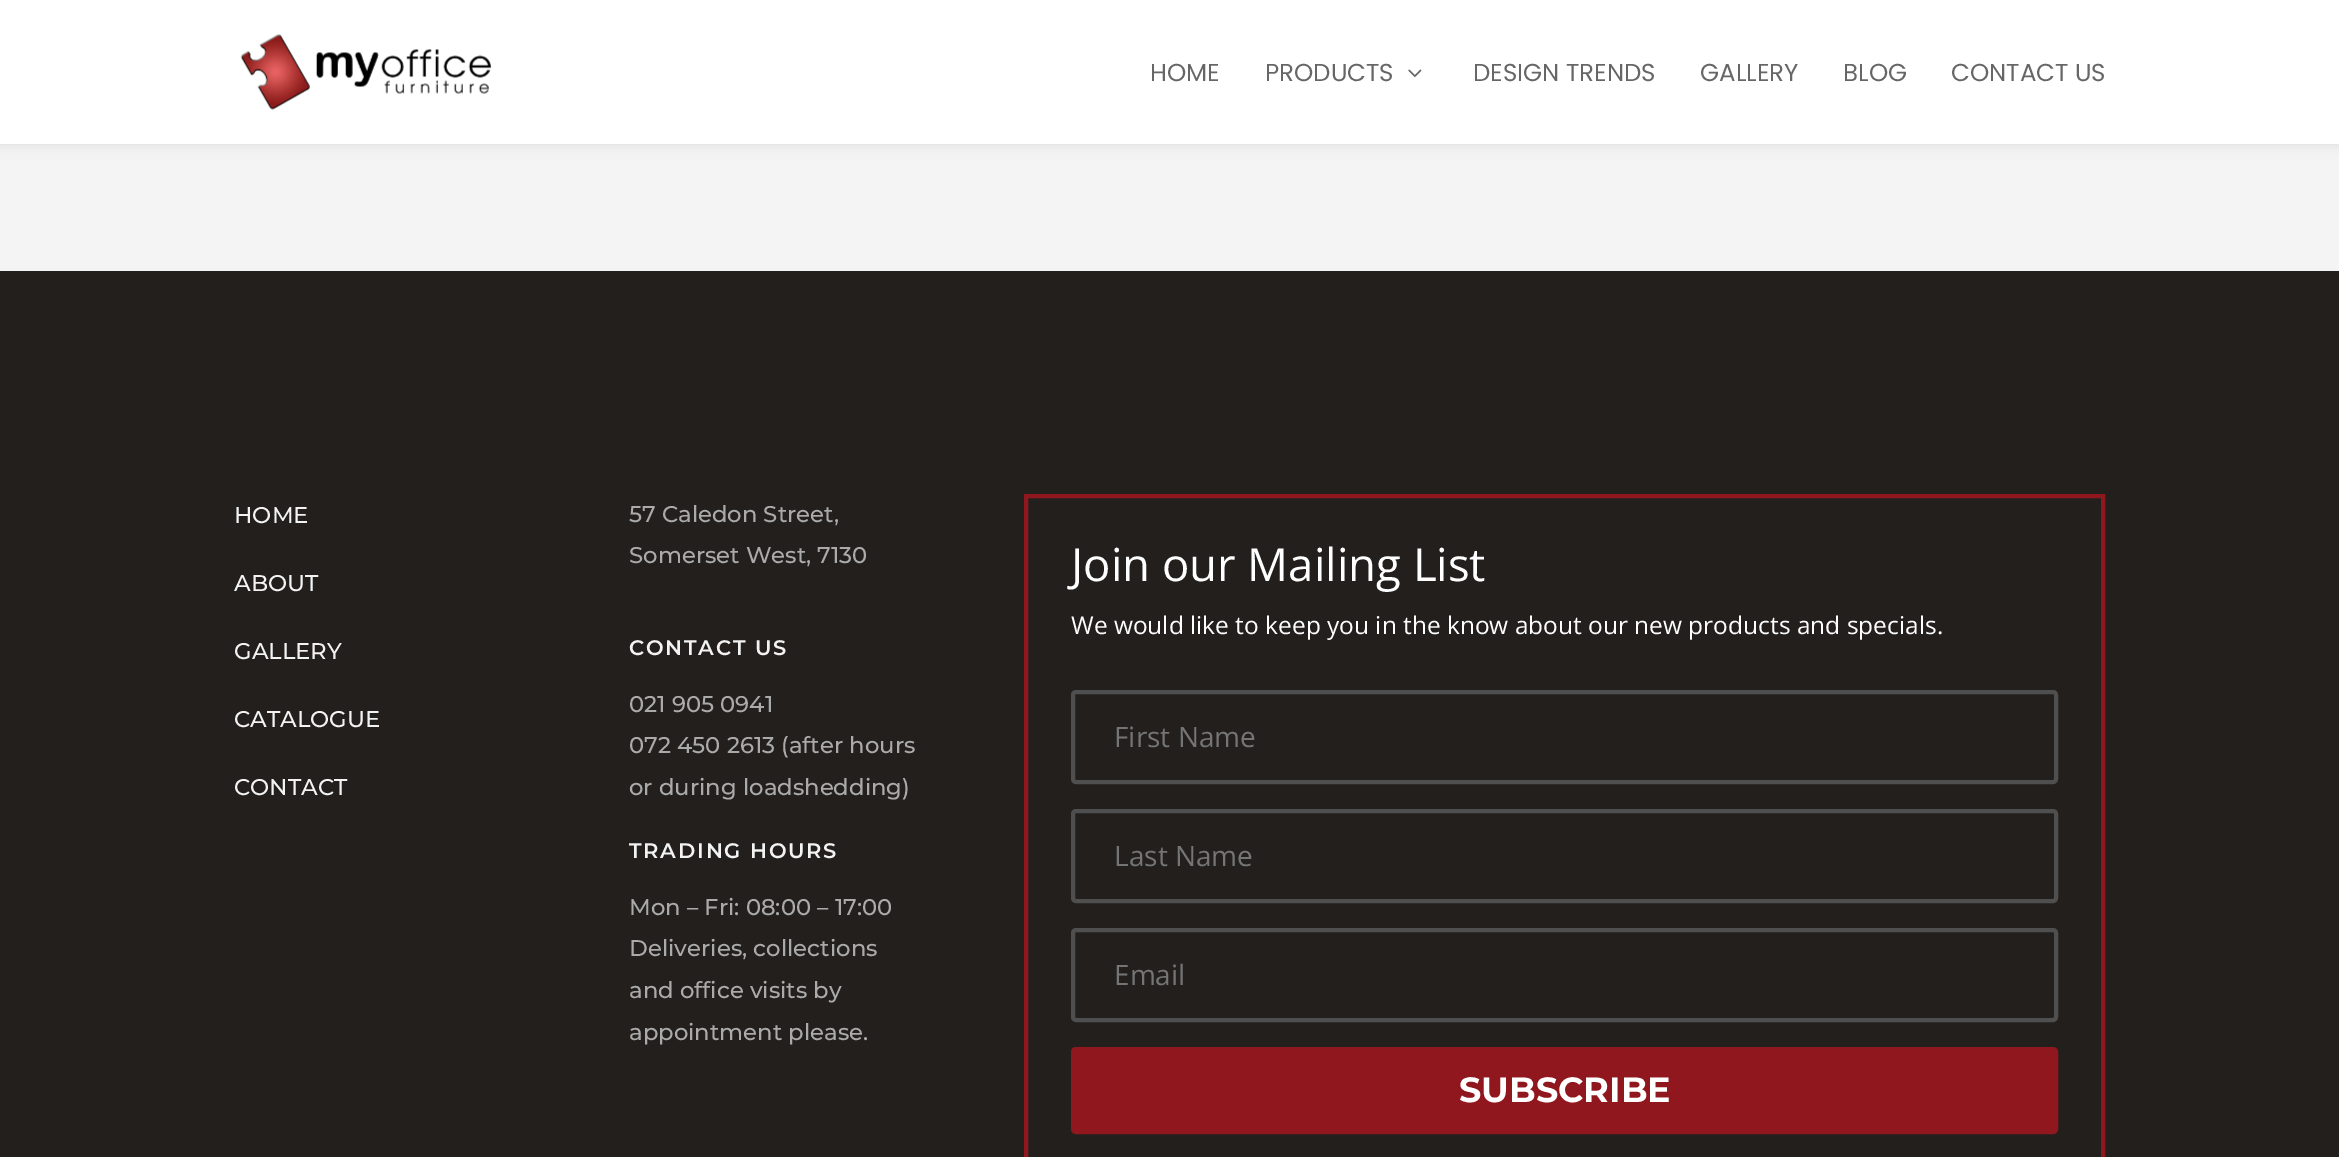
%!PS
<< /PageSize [2339 1157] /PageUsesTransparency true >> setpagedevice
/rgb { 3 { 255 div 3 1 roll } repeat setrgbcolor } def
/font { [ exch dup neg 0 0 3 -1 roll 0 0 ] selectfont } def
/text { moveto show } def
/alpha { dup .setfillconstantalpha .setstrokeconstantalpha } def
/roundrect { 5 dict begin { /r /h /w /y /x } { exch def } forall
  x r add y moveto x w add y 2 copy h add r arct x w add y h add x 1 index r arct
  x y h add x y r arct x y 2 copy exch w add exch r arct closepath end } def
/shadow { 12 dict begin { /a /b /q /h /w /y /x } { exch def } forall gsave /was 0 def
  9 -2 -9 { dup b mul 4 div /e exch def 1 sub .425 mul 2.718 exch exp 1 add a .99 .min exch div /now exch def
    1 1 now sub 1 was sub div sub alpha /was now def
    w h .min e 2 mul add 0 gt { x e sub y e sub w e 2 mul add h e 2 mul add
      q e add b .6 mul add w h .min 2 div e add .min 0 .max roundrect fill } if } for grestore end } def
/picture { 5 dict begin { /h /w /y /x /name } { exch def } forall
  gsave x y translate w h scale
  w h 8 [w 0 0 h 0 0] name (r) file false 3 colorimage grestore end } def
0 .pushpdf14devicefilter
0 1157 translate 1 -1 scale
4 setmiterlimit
244 244 244 rgb
0 0 2339 1157 rectfill
0 0 0 rgb
0 0 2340 144 0 6 0.1 shadow
255 255 255 rgb
0 0 2339 144 rectfill
(img_01.rgb) 240 34 252 76 picture
(img_02.rgb) 1408 69 14 8 picture
34 31 29 rgb
0 271 2339 886 rectfill
145 23 31 rgb
4 setlinewidth
1026 496 1077 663 rectstroke
79 79 79 rgb
1073 692 983 90 3 roundrect stroke
1073 811 983 90 3 roundrect stroke
1073 930 983 90 3 roundrect stroke
145 23 31 rgb
1073 1049 983 83 3 roundrect gsave fill grestore
stroke
/Poppins-Regular 24.5 font
102 102 102 rgb
(HOME) 1150 81 text
(PRODUCTS) 1265 81 text
(DESIGN TRENDS) 1473 81 text
(GALLERY) 1700 81 text
(BLOG) 1843 81 text
(CONTACT US) 1951 81 text
/Montserrat-Medium 22.75 font
243 243 244 rgb
(HOME) 234 523 text
(ABOUT) 234 591 text
(GALLERY) 234 659 text
(CATALOGUE) 234 727 text
(CONTACT) 234 795 text
170 170 170 rgb
(57 Caledon Street,) 629 522 text
(Somerset West, 7130) 629 563 text
/Montserrat-SemiBold 21 font
243 243 244 rgb
629 655 moveto 1.75 0 (CONTACT US) ashow
/Montserrat-Medium 22.75 font
170 170 170 rgb
(021 905 0941) 629 712 text
(072 450 2613 \(after hours) 629 753 text
(or during loadshedding\)) 629 795 text
/Montserrat-SemiBold 21 font
243 243 244 rgb
629 858 moveto 1.75 0 (TRADING HOURS) ashow
/Montserrat-Medium 22.75 font
170 170 170 rgb
(Mon – Fri: 08:00 – 17:00) 629 915 text
(Deliveries, collections) 629 956 text
(and office visits by) 629 998 text
(appointment please.) 629 1040 text
/OpenSans-Regular 45.5 font
255 255 255 rgb
(Join our Mailing List) 1071 581 text
/OpenSans-Regular 24.5 font
(We would like to keep you in the know about our new products and specials.) 1071 634 text
/OpenSans-Regular 28 font
117 117 117 rgb
(First Name) 1114 747 text
(Last Name) 1114 866 text
(Email) 1114 985 text
/Montserrat-Bold 35 font
255 255 255 rgb
(SUBSCRIBE) 1459 1102 text
.poppdf14devicefilter showpage
